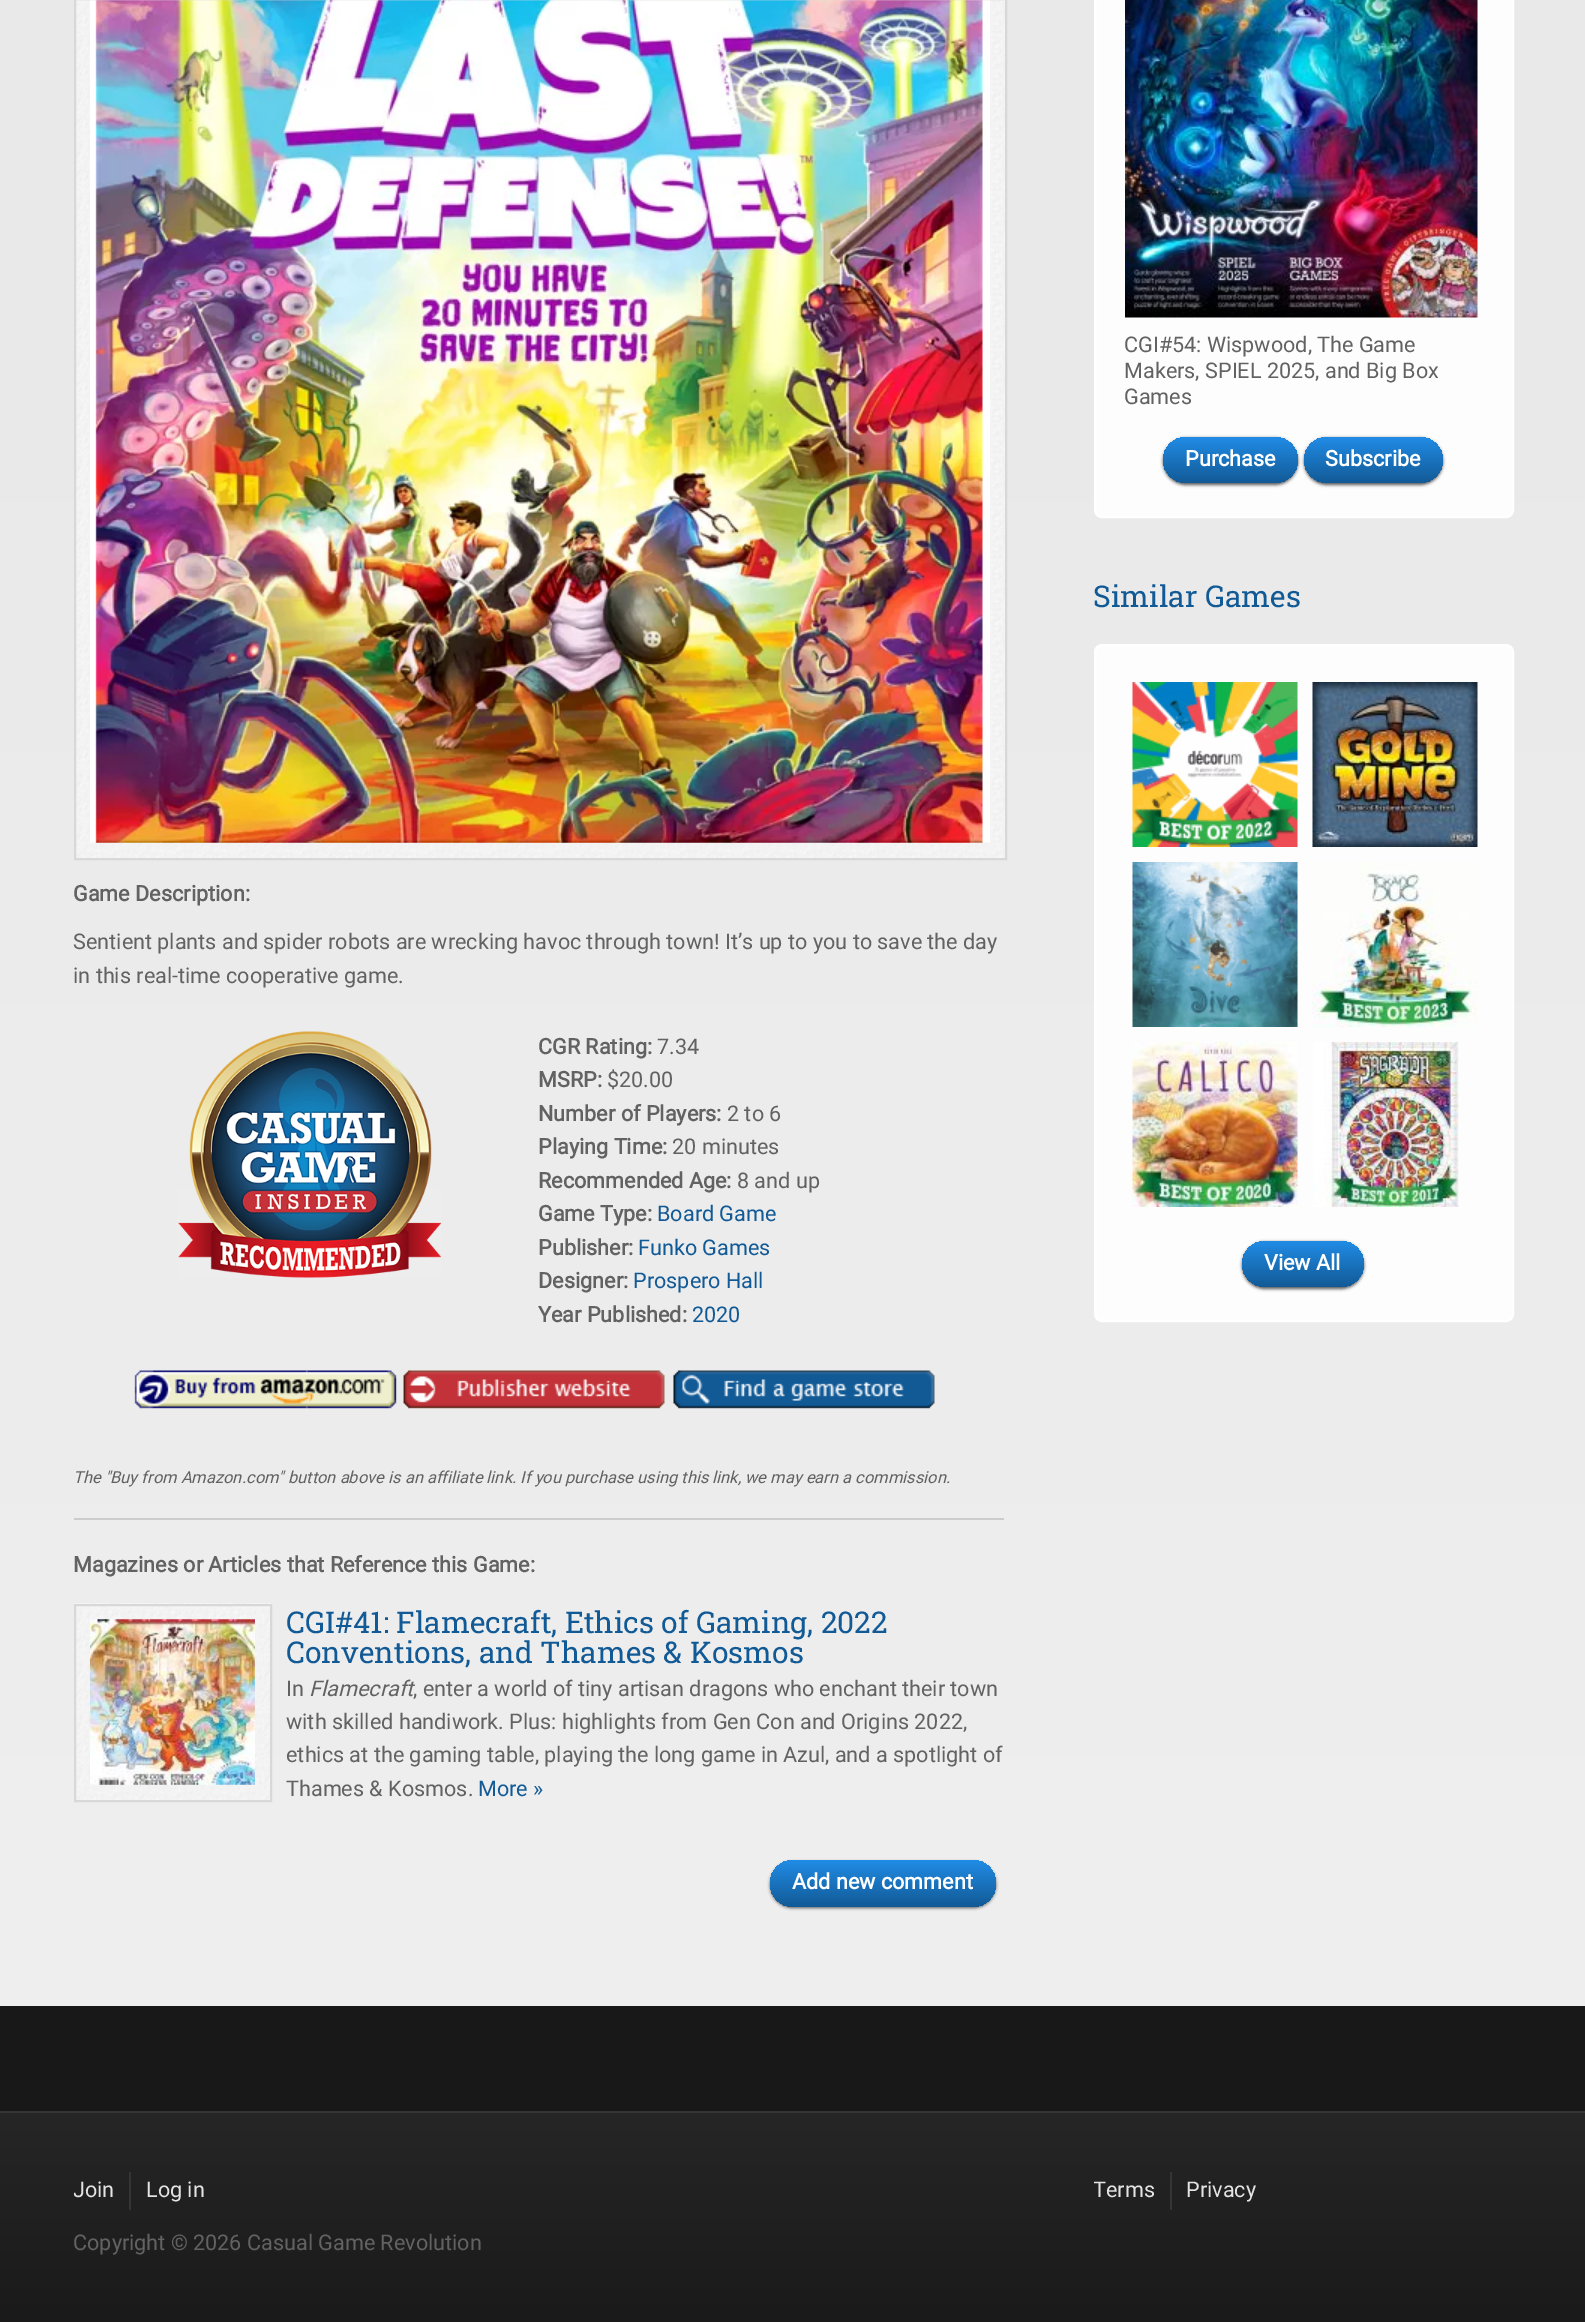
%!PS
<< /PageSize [1585 2322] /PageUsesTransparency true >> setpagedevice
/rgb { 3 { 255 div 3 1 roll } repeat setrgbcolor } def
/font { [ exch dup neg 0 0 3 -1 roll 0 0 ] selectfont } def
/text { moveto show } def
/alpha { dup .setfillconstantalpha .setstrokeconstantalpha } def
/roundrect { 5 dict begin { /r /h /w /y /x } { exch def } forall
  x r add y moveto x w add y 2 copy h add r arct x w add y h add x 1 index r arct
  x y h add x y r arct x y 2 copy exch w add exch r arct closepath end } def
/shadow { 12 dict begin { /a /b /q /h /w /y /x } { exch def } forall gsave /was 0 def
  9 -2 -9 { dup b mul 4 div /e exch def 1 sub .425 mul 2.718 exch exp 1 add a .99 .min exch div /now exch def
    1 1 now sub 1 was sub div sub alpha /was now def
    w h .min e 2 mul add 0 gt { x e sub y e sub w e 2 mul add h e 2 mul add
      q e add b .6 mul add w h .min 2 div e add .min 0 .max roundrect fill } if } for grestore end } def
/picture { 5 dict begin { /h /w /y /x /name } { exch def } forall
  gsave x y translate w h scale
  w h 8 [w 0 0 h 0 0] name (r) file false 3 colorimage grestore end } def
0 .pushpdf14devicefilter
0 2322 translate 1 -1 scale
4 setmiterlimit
255 255 255 rgb
0 0 1585 2322 rectfill
gsave 0 0 moveto 1585 0 rlineto 0 2006 rlineto -1585 0 rlineto closepath clip newpath
<< /ShadingType 2 /ColorSpace /DeviceRGB /Coords [793 -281 793 2006] /Extend [true true] /Function << /FunctionType 2 /Domain [0 1] /C0 [0.91 0.91 0.91] /C1 [0.937 0.937 0.937] /N 1 >> >> shfill grestore
(img_01.rgb) 76 0 929 858 picture
216 216 216 rgb
2 setlinewidth
75 -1 931 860 rectstroke
(img_02.rgb) 95 842 890 1 picture
(img_03.rgb) 178 1031 263 247 picture
(img_04.rgb) 134 1370 263 39 picture
(img_05.rgb) 403 1370 262 39 picture
(img_06.rgb) 673 1370 262 39 picture
204 204 204 rgb
74 1518 930 2 rectfill
(img_07.rgb) 74 1603 197 197 picture
216 216 216 rgb
75 1605 196 196 rectstroke
(img_08.rgb) 97 1619 158 166 picture
93 93 93 rgb
770 1862 226 46 23 1.5 1 shadow
gsave 770 1860 226 47 23 roundrect clip newpath
<< /ShadingType 2 /ColorSpace /DeviceRGB /Coords [883 1860 883 1907] /Extend [true true] /Function << /FunctionType 2 /Domain [0 1] /C0 [0.129 0.549 0.902] /C1 [0.071 0.353 0.588] /N 1 >> >> shfill grestore
253 253 253 rgb
1095 -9 418 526 7 roundrect gsave fill grestore
255 255 255 rgb
stroke
(img_09.rgb) 1125 0 353 318 picture
93 93 93 rgb
1163 438 135 47 23 1.5 1 shadow
gsave 1163 437 135 46 23 roundrect clip newpath
<< /ShadingType 2 /ColorSpace /DeviceRGB /Coords [1230 437 1230 483] /Extend [true true] /Function << /FunctionType 2 /Domain [0 1] /C0 [0.129 0.549 0.902] /C1 [0.071 0.353 0.588] /N 1 >> >> shfill grestore
1304 438 139 47 23 1.5 1 shadow
gsave 1304 437 139 46 23 roundrect clip newpath
<< /ShadingType 2 /ColorSpace /DeviceRGB /Coords [1373 437 1373 483] /Extend [true true] /Function << /FunctionType 2 /Domain [0 1] /C0 [0.129 0.549 0.902] /C1 [0.071 0.353 0.588] /N 1 >> >> shfill grestore
253 253 253 rgb
1095 645 418 676 7 roundrect gsave fill grestore
255 255 255 rgb
stroke
(img_10.rgb) 1132 682 166 165 picture
(img_11.rgb) 1312 682 166 165 picture
(img_12.rgb) 1132 862 166 165 picture
(img_13.rgb) 1312 862 166 165 picture
(img_14.rgb) 1132 1042 166 165 picture
(img_15.rgb) 1313 1042 146 165 picture
93 93 93 rgb
1242 1242 122 47 23 1.5 1 shadow
gsave 1242 1241 122 46 23 roundrect clip newpath
<< /ShadingType 2 /ColorSpace /DeviceRGB /Coords [1303 1241 1303 1287] /Extend [true true] /Function << /FunctionType 2 /Domain [0 1] /C0 [0.129 0.549 0.902] /C1 [0.071 0.353 0.588] /N 1 >> >> shfill grestore
24 24 24 rgb
0 2006 1585 105 rectfill
gsave 0 2113 moveto 1585 0 rlineto 0 209 rlineto -1585 0 rlineto closepath clip newpath
<< /ShadingType 2 /ColorSpace /DeviceRGB /Coords [793 2112 793 2322] /Extend [true true] /Function << /FunctionType 2 /Domain [0 1] /C0 [0.149 0.149 0.149] /C1 [0.102 0.102 0.102] /N 1 >> >> shfill grestore
53 53 53 rgb
0 2111 1585 2 rectfill
129 2172 2 38 rectfill
1170 2172 2 38 rectfill
/Roboto-Bold 21.6 font
98 98 98 rgb
(Game Description:) 73 901 text
/Roboto-Regular 21.6 font
(Sentient plants and spider robots are wrecking havoc through town! It’s up to you to save the day) 73 949 text
(in this real-time cooperative game.) 73 983 text
/Roboto-Bold 21.6 font
(CGR Rating:) 538 1054 text
/Roboto-Regular 21.6 font
(7.34) 657 1054 text
/Roboto-Bold 21.6 font
(MSRP:) 538 1087 text
/Roboto-Regular 21.6 font
($20.00) 607 1087 text
/Roboto-Bold 21.6 font
(Number of Players:) 538 1121 text
/Roboto-Regular 21.6 font
(2 to 6) 727 1121 text
/Roboto-Bold 21.6 font
(Playing Time:) 538 1154 text
/Roboto-Regular 21.6 font
(20 minutes) 672 1154 text
/Roboto-Bold 21.6 font
(Recommended Age:) 538 1188 text
/Roboto-Regular 21.6 font
(8 and up) 737 1188 text
/Roboto-Bold 21.6 font
(Game Type:) 538 1221 text
/Roboto-Regular 21.6 font
18 90 150 rgb
(Board Game) 657 1221 text
/Roboto-Bold 21.6 font
98 98 98 rgb
(Publisher:) 538 1255 text
/Roboto-Regular 21.6 font
18 90 150 rgb
(Funko Games) 638 1255 text
/Roboto-Bold 21.6 font
98 98 98 rgb
(Designer:) 538 1288 text
/Roboto-Regular 21.6 font
18 90 150 rgb
(Prospero Hall) 633 1288 text
/Roboto-Bold 21.6 font
98 98 98 rgb
(Year Published:) 538 1322 text
/Roboto-Regular 21.6 font
18 90 150 rgb
(2020) 692 1322 text
/Roboto-Italic 16.5 font
98 98 98 rgb
(The "Buy from Amazon.com" button above is an affiliate link. If you purchase using this link, we may earn a commission.) 73 1483 text
/Roboto-Bold 21.6 font
(Magazines or Articles that Reference this Game:) 73 1572 text
/RobotoSlab-Regular 30 font
18 90 150 rgb
(CGI#41: Flamecraft, Ethics of Gaming, 2022) 286 1633 text
(Conventions, and Thames & Kosmos) 286 1663 text
/Roboto-Regular 21.6 font
98 98 98 rgb
(In) 286 1696 text
/Roboto-Italic 21.6 font
(Flamecraft) 309 1696 text
/Roboto-Regular 21.6 font
(, enter a world of tiny artisan dragons who enchant their town) 413 1696 text
(with skilled handiwork. Plus: highlights from Gen Con and Origins 2022,) 286 1729 text
(ethics at the gaming table, playing the long game in Azul, and a spotlight of) 286 1762 text
(Thames & Kosmos.) 286 1796 text
18 90 150 rgb
(More ») 478 1796 text
/Roboto-Bold 21.6 font
254 254 254 rgb
(Add new comment) 792 1889 text
/Roboto-Regular 21.6 font
98 98 98 rgb
(CGI#54: Wispwood, The Game) 1124 352 text
(Makers, SPIEL 2025, and Big Box) 1124 378 text
(Games) 1124 404 text
/Roboto-Bold 21.6 font
254 254 254 rgb
(Purchase) 1185 466 text
(Subscribe) 1325 466 text
/RobotoSlab-Regular 30 font
18 90 150 rgb
(Similar Games) 1093 607 text
/Roboto-Bold 21.6 font
254 254 254 rgb
(View All) 1264 1270 text
gsave
74 2172 55 38 rectclip
/Roboto-Regular 21.6 font
228 228 228 rgb
(Join) 73 2197 text
grestore
/Roboto-Regular 21.6 font
228 228 228 rgb
(Log in) 146 2197 text
98 98 98 rgb
(Copyright © 2026 Casual Game Revolution) 73 2250 text
gsave
1094 2172 76 38 rectclip
228 228 228 rgb
(Terms) 1093 2197 text
grestore
228 228 228 rgb
(Privacy) 1186 2197 text
.poppdf14devicefilter showpage
